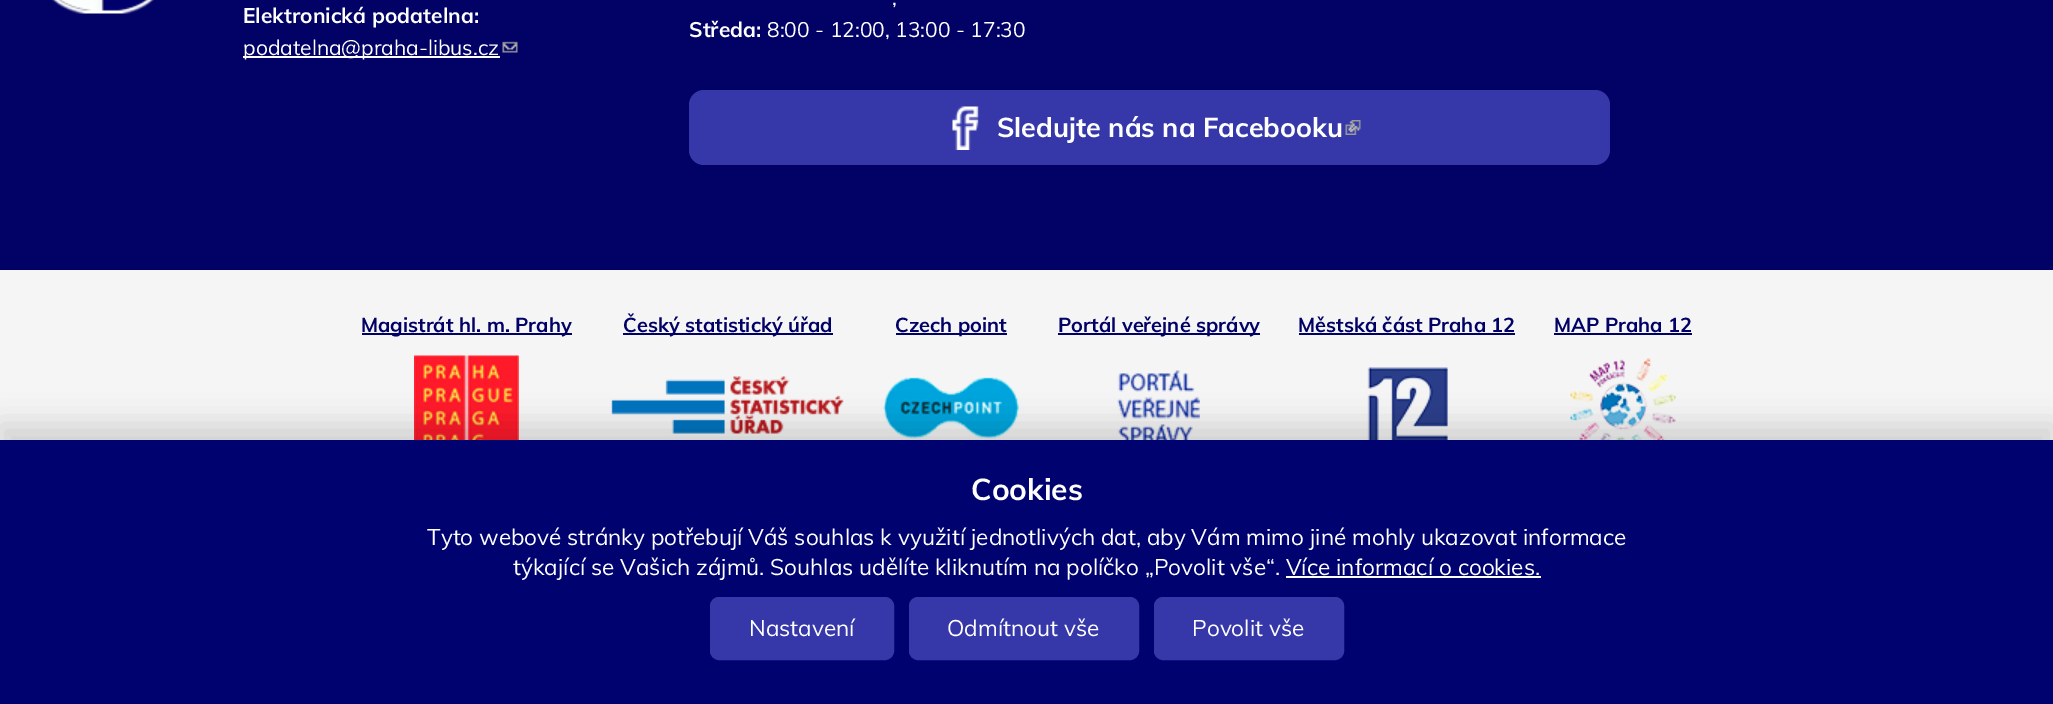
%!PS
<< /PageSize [2053 704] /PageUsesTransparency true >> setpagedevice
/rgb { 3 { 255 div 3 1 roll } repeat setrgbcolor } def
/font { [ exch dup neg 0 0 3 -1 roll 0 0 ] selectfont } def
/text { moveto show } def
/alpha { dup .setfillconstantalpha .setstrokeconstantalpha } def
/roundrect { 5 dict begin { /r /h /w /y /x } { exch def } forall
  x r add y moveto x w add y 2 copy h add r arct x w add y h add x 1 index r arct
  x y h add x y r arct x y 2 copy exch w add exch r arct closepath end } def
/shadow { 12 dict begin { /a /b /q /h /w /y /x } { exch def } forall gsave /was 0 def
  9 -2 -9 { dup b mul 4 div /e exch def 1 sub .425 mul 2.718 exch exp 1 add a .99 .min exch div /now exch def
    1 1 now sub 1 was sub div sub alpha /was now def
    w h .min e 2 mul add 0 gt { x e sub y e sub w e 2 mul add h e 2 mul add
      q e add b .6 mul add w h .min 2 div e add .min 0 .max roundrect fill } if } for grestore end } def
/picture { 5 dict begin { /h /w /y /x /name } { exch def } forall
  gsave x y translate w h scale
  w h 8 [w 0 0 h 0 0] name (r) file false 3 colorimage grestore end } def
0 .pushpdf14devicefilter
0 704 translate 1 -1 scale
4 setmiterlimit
1 1 102 rgb
0 0 2053 704 rectfill
(img_01.rgb) 52 0 102 14 picture
255 255 255 rgb
243 56 257 2 rectfill
(img_02.rgb) 502 41 16 12 picture
54 56 169 rgb
689 90 921 75 15 roundrect fill
(img_03.rgb) 952 106 27 44 picture
(img_04.rgb) 1345 120 16 15 picture
245 245 245 rgb
0 270 2053 170 rectfill
1 1 102 rgb
362 333 210 2 rectfill
(img_05.rgb) 414 355 105 85 picture
623 333 210 2 rectfill
(img_06.rgb) 611 376 233 58 picture
896 333 111 2 rectfill
(img_07.rgb) 883 377 136 62 picture
1058 333 202 2 rectfill
(img_08.rgb) 1117 370 83 70 picture
1299 333 216 2 rectfill
(img_09.rgb) 1367 367 81 73 picture
1554 333 138 2 rectfill
(img_10.rgb) 1570 358 106 82 picture
0 0 0 rgb
0 425 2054 265 0 15 0.15 shadow
0 2 111 rgb
0 440 2053 264 rectfill
255 255 255 rgb
1286 576 255 2 rectfill
54 56 169 rgb
711 598 182 61 8 roundrect gsave fill grestore
2 setlinewidth
stroke
910 598 228 61 8 roundrect gsave fill grestore
stroke
1155 598 188 61 8 roundrect gsave fill grestore
stroke
/Muli-Bold 21 font
255 255 255 rgb
(Elektronická podatelna:) 243 23 text
/Muli-Regular 21 font
(podatelna@praha-libus.cz) 243 55 text
(,) 892 5 text
/Muli-Bold 21 font
(Středa:) 689 37 text
/Muli-Regular 21 font
(8:00 - 12:00, 13:00 - 17:30) 767 37 text
/Muli-Bold 27 font
(Sledujte nás na Facebooku) 997 137 text
/Muli-Bold 20 font
1 1 102 rgb
(Magistrát hl. m. Prahy) 361 332 text
(Český statistický úřad) 623 332 text
(Czech point) 895 332 text
(Portál veřejné správy) 1058 332 text
(Městská část Praha 12) 1298 332 text
(MAP Praha 12) 1554 332 text
/Muli-Bold 30 font
255 255 255 rgb
(Cookies) 971 500 text
/Muli-Regular 22.5 font
(Tyto webové stránky potřebují Váš souhlas k využití jednotlivých dat, aby Vám mimo jiné mohly ukazovat informace) 427 545 text
(týkající se Vašich zájmů. Souhlas udělíte kliknutím na políčko „Povolit vše“. Více informací o cookies.) 513 575 text
(Nastavení) 749 636 text
(Odmítnout vše) 947 636 text
(Povolit vše) 1192 636 text
.poppdf14devicefilter showpage
